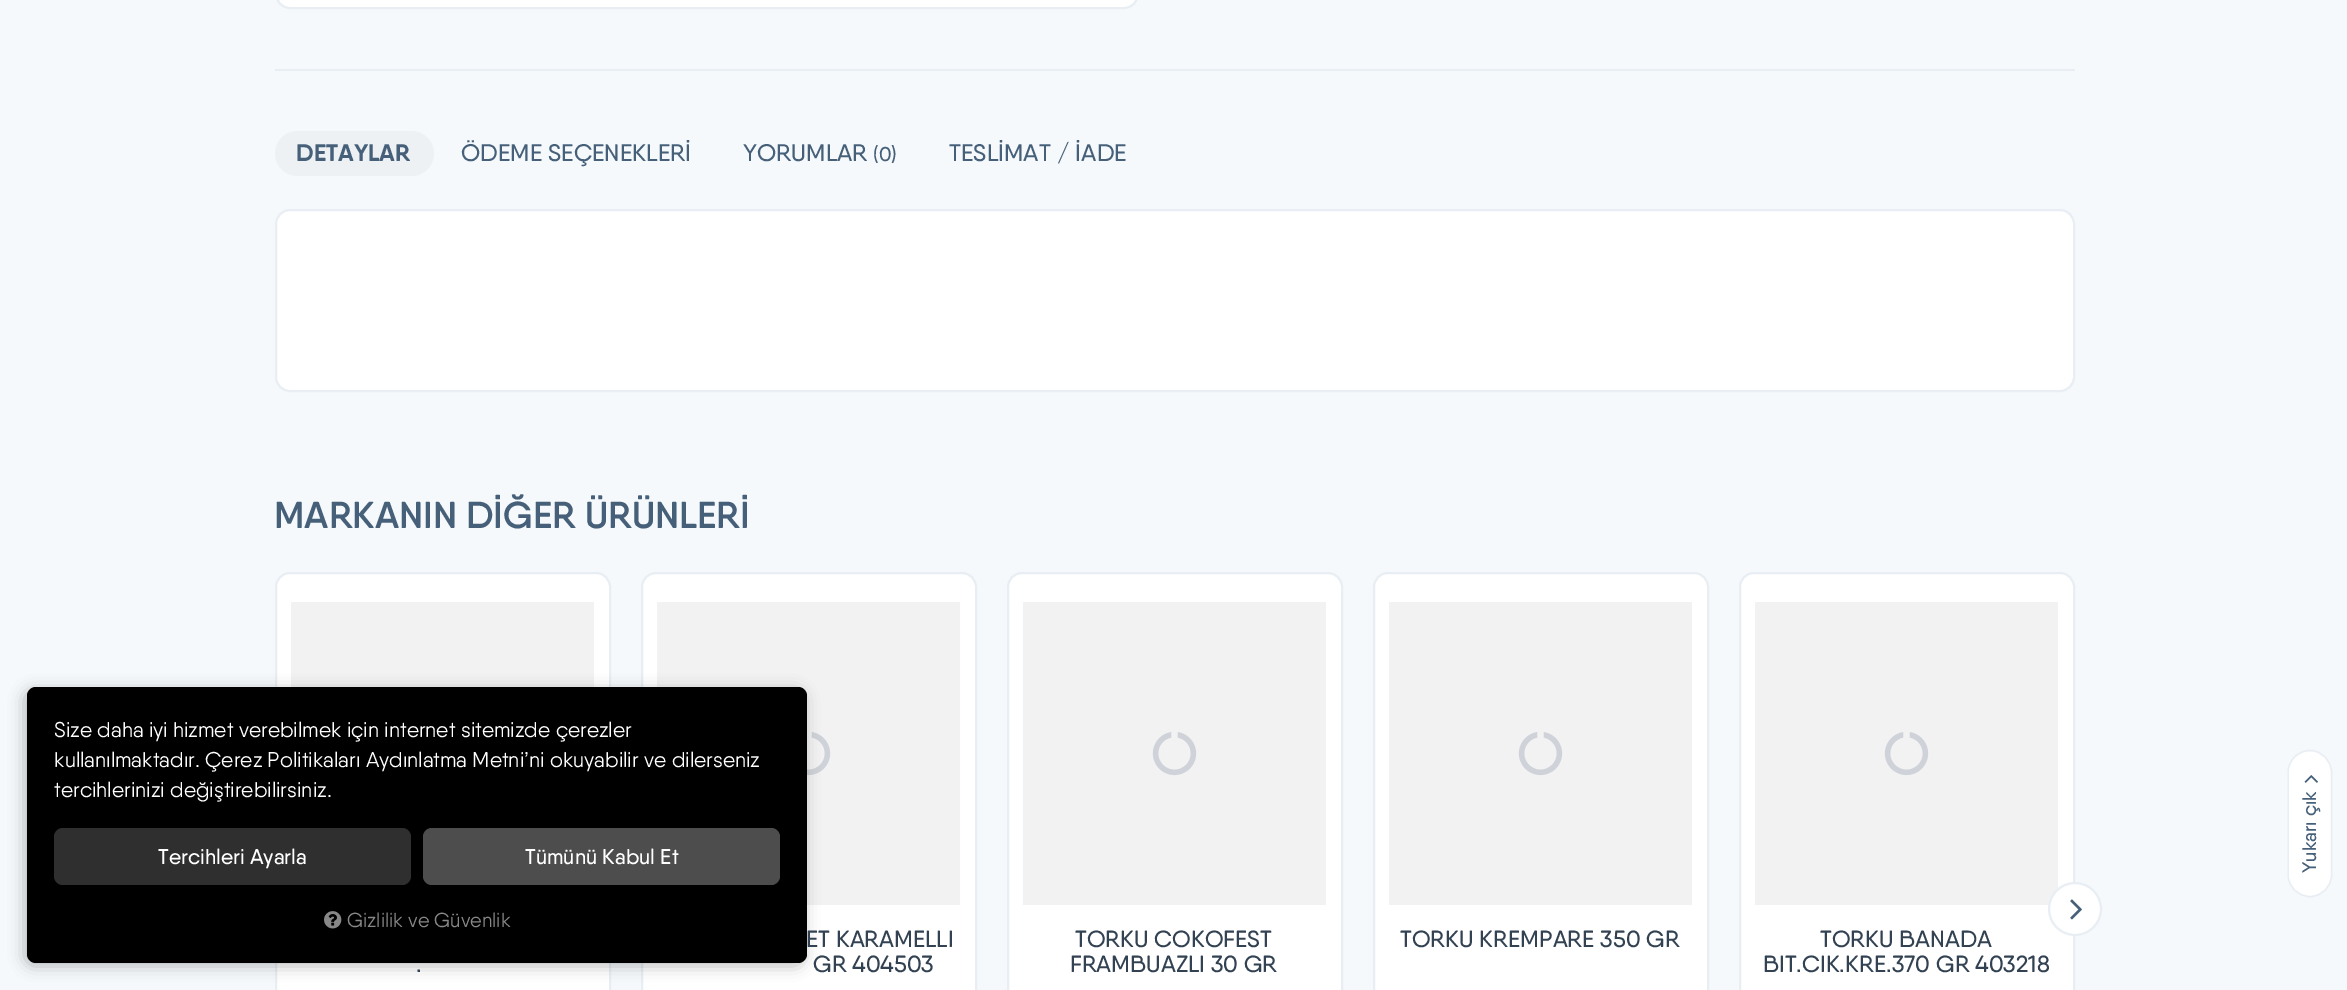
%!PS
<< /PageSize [2347 990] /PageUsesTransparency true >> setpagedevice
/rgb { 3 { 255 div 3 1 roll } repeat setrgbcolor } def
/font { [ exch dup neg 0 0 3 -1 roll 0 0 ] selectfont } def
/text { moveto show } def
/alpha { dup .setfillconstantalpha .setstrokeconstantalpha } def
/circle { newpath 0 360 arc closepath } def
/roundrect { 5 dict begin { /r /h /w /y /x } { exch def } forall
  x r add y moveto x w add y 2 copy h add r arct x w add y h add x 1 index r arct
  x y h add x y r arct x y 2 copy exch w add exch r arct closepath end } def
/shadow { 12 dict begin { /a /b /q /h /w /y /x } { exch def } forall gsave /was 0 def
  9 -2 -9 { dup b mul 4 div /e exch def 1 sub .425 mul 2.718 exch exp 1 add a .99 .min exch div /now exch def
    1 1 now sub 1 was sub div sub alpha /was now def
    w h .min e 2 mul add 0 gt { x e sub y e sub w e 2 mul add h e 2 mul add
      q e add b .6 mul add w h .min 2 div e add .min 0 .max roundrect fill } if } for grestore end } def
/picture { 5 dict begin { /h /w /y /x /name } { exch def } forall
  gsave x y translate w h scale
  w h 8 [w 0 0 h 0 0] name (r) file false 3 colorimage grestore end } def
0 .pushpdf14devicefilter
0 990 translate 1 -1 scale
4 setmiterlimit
245 249 251 rgb
0 0 2347 990 rectfill
232 238 243 rgb
275 69 1800 2 rectfill
255 255 255 rgb
276 -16 862 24 14 roundrect gsave fill grestore
232 238 243 rgb
2 setlinewidth
stroke
237 241 243 rgb
275 131 159 45 22.5 roundrect fill
255 255 255 rgb
276 210 1798 181 14 roundrect gsave fill grestore
232 238 243 rgb
stroke
255 255 255 rgb
1740 573 334 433 14 roundrect gsave fill grestore
232 238 243 rgb
stroke
242 242 242 rgb
1755 602 303 303 rectfill
255 255 255 rgb
2075 909 26 circle gsave fill grestore
232 238 243 rgb
stroke
(img_01.rgb) 2070 899 12 21 picture
255 255 255 rgb
276 573 334 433 14 roundrect gsave fill grestore
232 238 243 rgb
stroke
242 242 242 rgb
291 602 303 85 rectfill
255 255 255 rgb
642 573 334 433 14 roundrect gsave fill grestore
232 238 243 rgb
stroke
242 242 242 rgb
657 602 303 303 rectfill
(img_02.rgb) 807 732 24 44 picture
255 255 255 rgb
1008 573 334 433 14 roundrect gsave fill grestore
232 238 243 rgb
stroke
242 242 242 rgb
1023 602 303 303 rectfill
(img_03.rgb) 1152 732 45 44 picture
255 255 255 rgb
1374 573 334 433 14 roundrect gsave fill grestore
232 238 243 rgb
stroke
242 242 242 rgb
1389 602 303 303 rectfill
(img_03.rgb) 1518 732 45 44 picture
(img_03.rgb) 1884 732 45 44 picture
0 0 0 rgb
24 690 780 276 9 7.5 0.25 shadow
27 687 780 276 9 roundrect fill
47 47 47 rgb
54 828 357 57 9 roundrect fill
77 77 77 rgb
423 828 357 57 9 roundrect fill
(img_04.rgb) 324 911 18 18 picture
255 255 255 rgb
2287 875 moveto 0 -103 rlineto 0 -12 11 -22 23 -22 rcurveto 12 0 22 10 22 22 rcurveto 0 103 rlineto 0 12 -10 22 -22 22 rcurveto -12 0 -23 -10 -23 -22 rcurveto closepath fill
232 238 243 rgb
1.5 setlinewidth
2288 875 moveto 0 -102.5 rlineto 0 -12 10 -22 22 -22 rcurveto 12 0 21.5 10 21.5 22 rcurveto 0 102.5 rlineto 0 12 -9.5 21.5 -21.5 21.5 rcurveto -12 0 -22 -9.5 -22 -21.5 rcurveto closepath stroke
(img_05.rgb) 2304 775 14 8 picture
/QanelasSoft-Bold 24 font
70 96 121 rgb
(DETAYLAR) 296 161 text
/QanelasSoft-Medium 24 font
(ÖDEME SEÇENEKLERİ) 461 161 text
(YORUMLAR) 743 161 text
/QanelasSoft-Medium 20 font
(\(0\)) 873 161 text
/QanelasSoft-Medium 24 font
(TESLİMAT / İADE) 949 161 text
/QanelasSoft-SemiBold 37.5 font
(MARKANIN DİĞER ÜRÜNLERİ) 274 528 text
/QanelasSoft-Medium 23.4 font
50 66 82 rgb
(.) 416 972 text
(ET KARAMELLI) 806 947 text
(GR 404503) 813 972 text
(TORKU COKOFEST) 1075 947 text
(FRAMBUAZLI 30 GR) 1070 972 text
(TORKU KREMPARE 350 GR) 1400 947 text
(TORKU BANADA) 1820 947 text
(BIT.CIK.KRE.370 GR 403218) 1763 972 text
/QanelasSoft-Regular 21.4 font
255 255 255 rgb
(Size daha iyi hizmet verebilmek için internet sitemizde çerezler) 54 737 text
(kullanılmaktadır. Çerez Politikaları Aydınlatma Metni’ni okuyabilir ve dilerseniz) 54 767 text
(tercihlerinizi değiştirebilirsiniz.) 54 797 text
/QanelasSoft-Medium 21.4 font
(Tercihleri Ayarla) 158 864 text
(Tümünü Kabul Et) 525 864 text
/QanelasSoft-Regular 20.25 font
136 136 136 rgb
(Gizlilik ve Güvenlik) 347 927 text
/QanelasSoft-Medium 19.5 font
70 96 121 rgb
gsave 2316 873 translate -90 rotate 0 0 moveto (Yukarı çık) show grestore
.poppdf14devicefilter showpage
